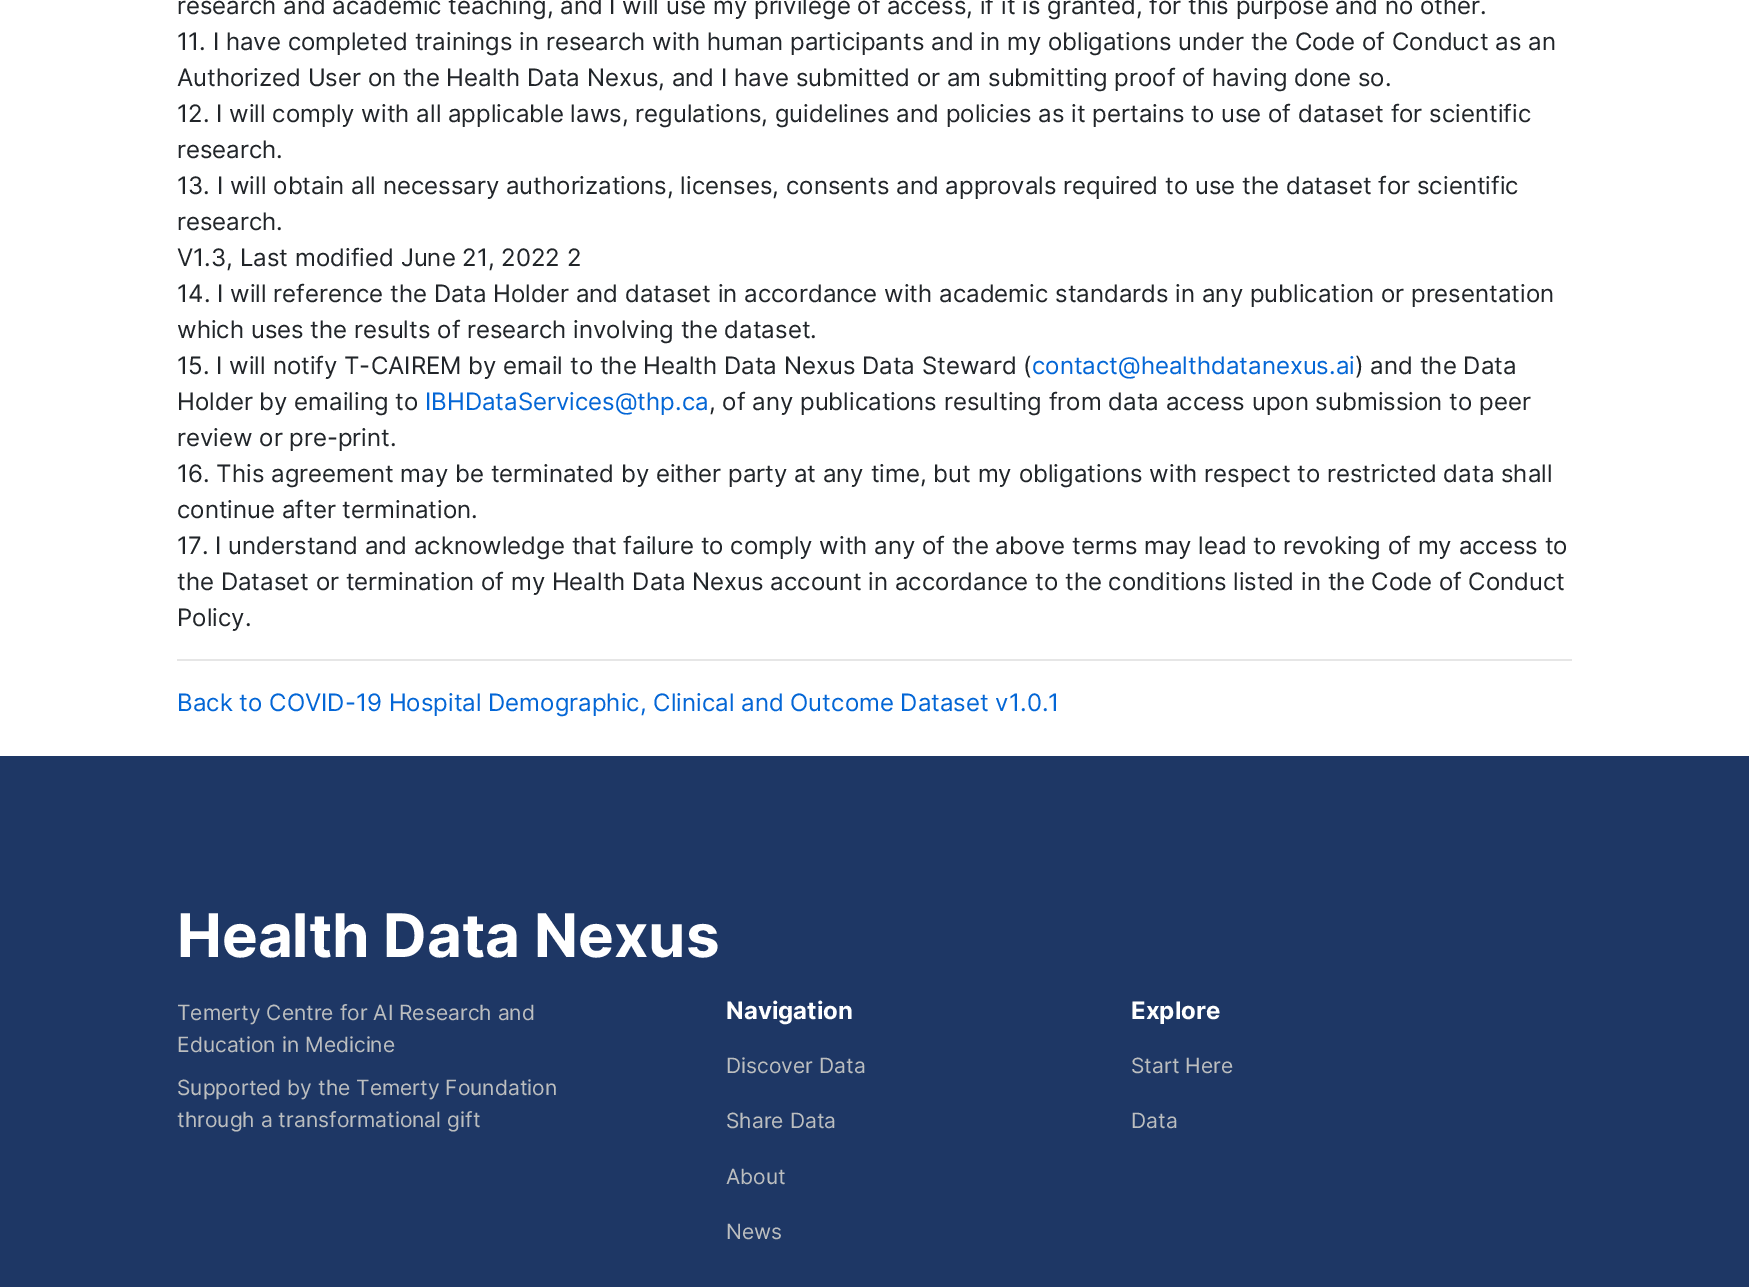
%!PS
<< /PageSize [1749 1287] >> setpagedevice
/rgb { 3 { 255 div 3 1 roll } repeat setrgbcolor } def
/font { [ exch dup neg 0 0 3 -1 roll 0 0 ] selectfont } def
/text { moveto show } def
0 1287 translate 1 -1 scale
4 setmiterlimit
255 255 255 rgb
0 0 1749 1287 rectfill
230 230 230 rgb
177 659 1395 2 rectfill
30 55 101 rgb
0 756 1749 531 rectfill
/Inter-Regular 24 font
33 37 41 rgb
(research and academic teaching, and I will use my privilege of access, if it is granted, for this purpose and no other.) 177 14 text
(11. I have completed trainings in research with human participants and in my obligations under the Code of Conduct as an) 177 50 text
(Authorized User on the Health Data Nexus, and I have submitted or am submitting proof of having done so.) 177 86 text
(12. I will comply with all applicable laws, regulations, guidelines and policies as it pertains to use of dataset for scientific) 177 122 text
(research.) 177 158 text
(13. I will obtain all necessary authorizations, licenses, consents and approvals required to use the dataset for scientific) 177 194 text
(research.) 177 230 text
(V1.3, Last modified June 21, 2022 2) 177 266 text
(14. I will reference the Data Holder and dataset in accordance with academic standards in any publication or presentation) 177 302 text
(which uses the results of research involving the dataset.) 177 338 text
(15. I will notify T-CAIREM by email to the Health Data Nexus Data Steward \() 177 374 text
3 102 214 rgb
(contact@healthdatanexus.ai) 1032 374 text
33 37 41 rgb
(\) and the Data) 1355 374 text
(Holder by emailing to) 177 410 text
3 102 214 rgb
(IBHDataServices@thp.ca) 425 410 text
33 37 41 rgb
(, of any publications resulting from data access upon submission to peer) 709 410 text
(review or pre-print.) 177 446 text
(16. This agreement may be terminated by either party at any time, but my obligations with respect to restricted data shall) 177 482 text
(continue after termination.) 177 518 text
(17. I understand and acknowledge that failure to comply with any of the above terms may lead to revoking of my access to) 177 554 text
(the Dataset or termination of my Health Data Nexus account in accordance to the conditions listed in the Code of Conduct) 177 590 text
(Policy.) 177 626 text
3 102 214 rgb
(Back to COVID-19 Hospital Demographic, Clinical and Outcome Dataset v1.0.1) 177 711 text
/Inter-Bold 60 font
255 255 255 rgb
(Health Data Nexus) 177 957 text
/Inter-Regular 21 font
188 190 191 rgb
(Temerty Centre for AI Research and) 177 1020 text
(Education in Medicine) 177 1052 text
(Supported by the Temerty Foundation) 177 1095 text
(through a transformational gift) 177 1127 text
/Inter-Bold 24 font
255 255 255 rgb
(Navigation) 726 1019 text
/Inter-Regular 21 font
188 190 191 rgb
(Discover Data) 726 1073 text
(Share Data) 726 1128 text
(About) 726 1184 text
(News) 726 1239 text
/Inter-Bold 24 font
255 255 255 rgb
(Explore) 1131 1019 text
/Inter-Regular 21 font
188 190 191 rgb
(Start Here) 1131 1073 text
(Data) 1131 1128 text
showpage
